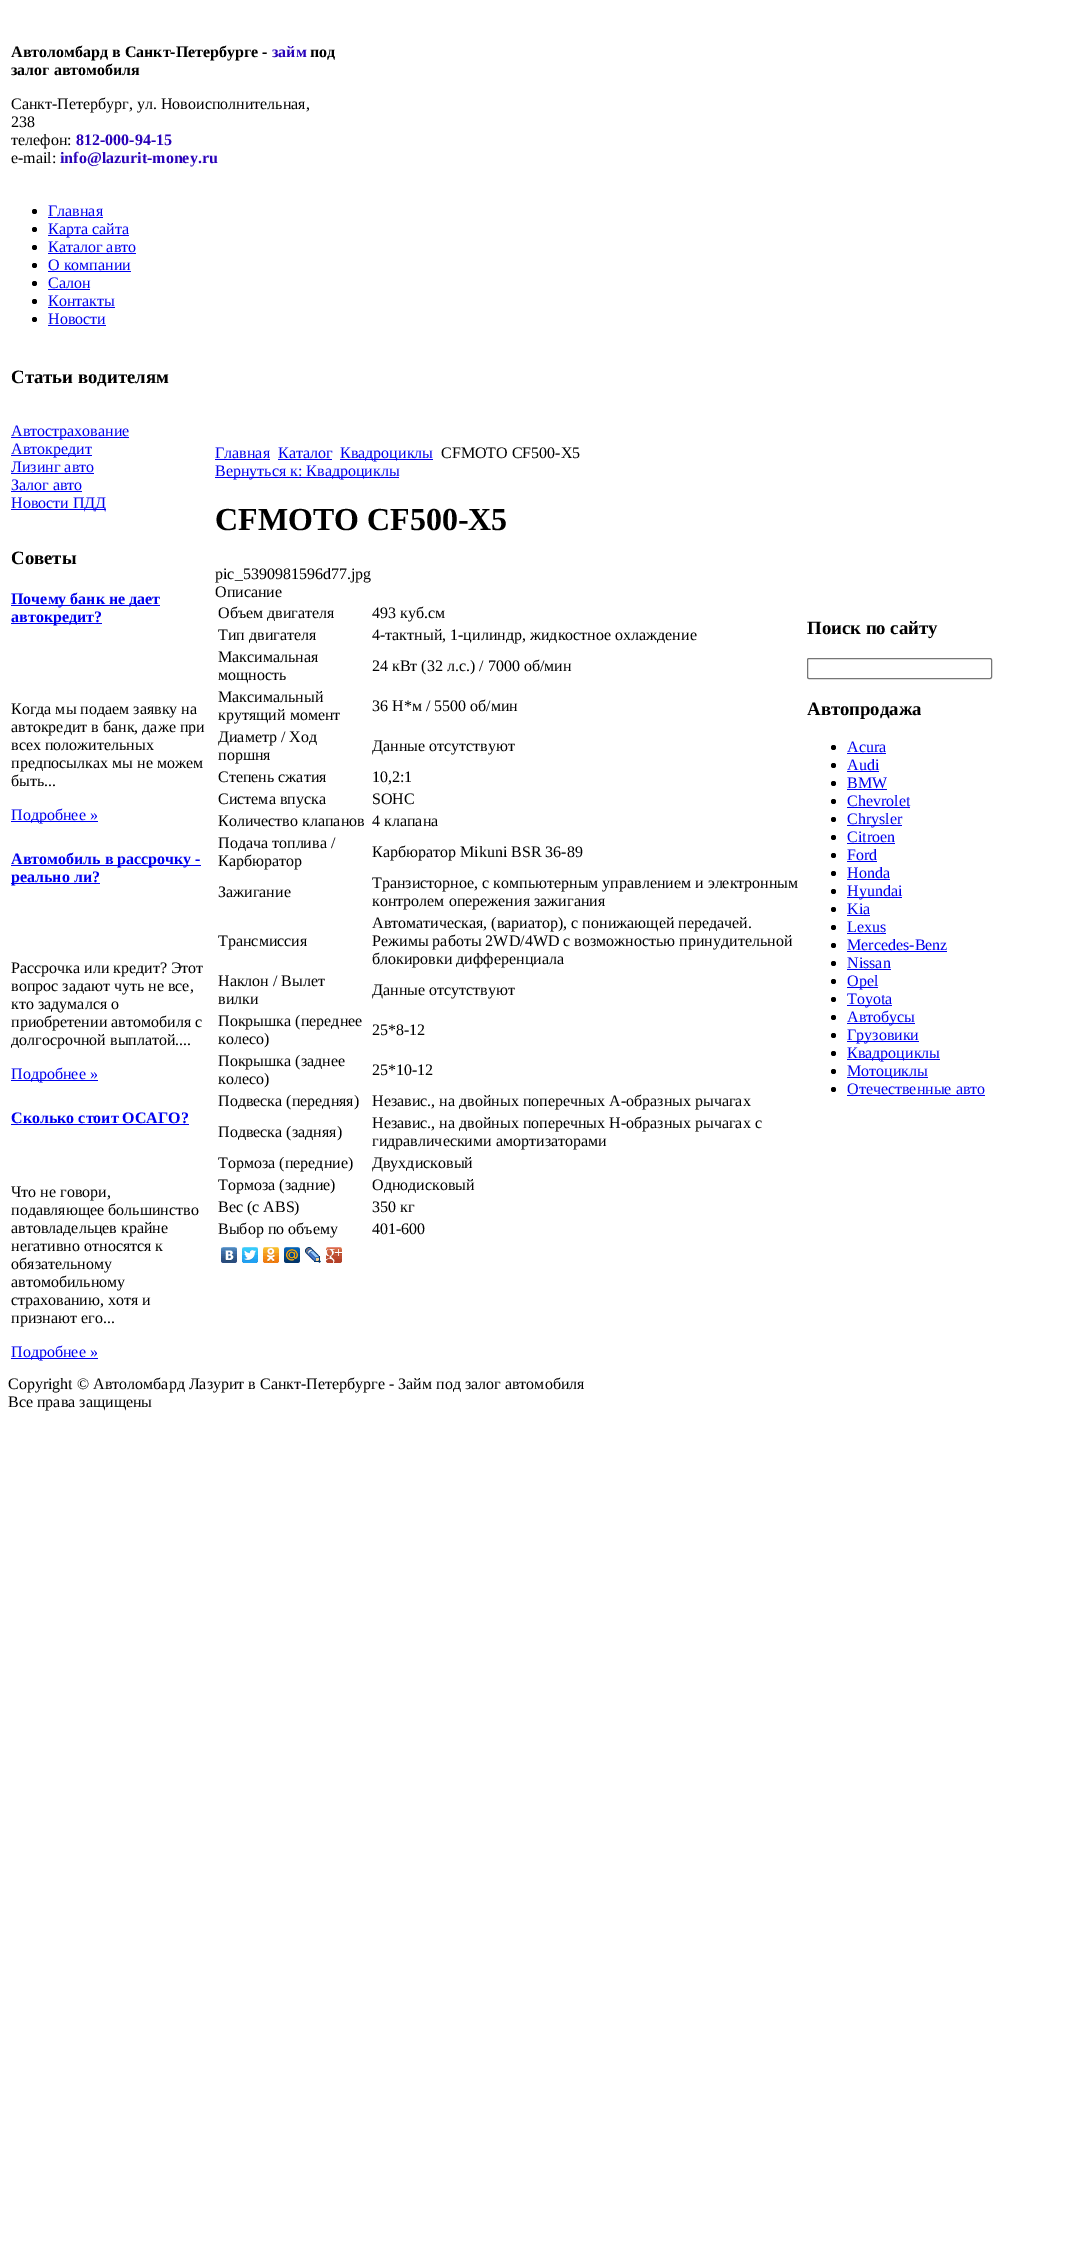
%!PS
<< /PageSize [1068 2250] >> setpagedevice
/rgb { 3 { 255 div 3 1 roll } repeat setrgbcolor } def
/font { [ exch dup neg 0 0 3 -1 roll 0 0 ] selectfont } def
/text { moveto show } def
/circle { newpath 0 360 arc closepath } def
/roundrect { 5 dict begin { /r /h /w /y /x } { exch def } forall
  x r add y moveto x w add y 2 copy h add r arct x w add y h add x 1 index r arct
  x y h add x y r arct x y 2 copy exch w add exch r arct closepath end } def
/picture { 5 dict begin { /h /w /y /x /name } { exch def } forall
  gsave x y translate w h scale
  w h 8 [w 0 0 h 0 0] name (r) file false 3 colorimage grestore end } def
0 2250 translate 1 -1 scale
4 setmiterlimit
255 255 255 rgb
0 0 1068 2250 rectfill
0 0 0 rgb
34.5 211.5 2.5 circle fill
0 0 238 rgb
48 217 55 1 rectfill
0 0 0 rgb
34.5 229.5 2.5 circle fill
0 0 238 rgb
48 235 81 1 rectfill
0 0 0 rgb
34.5 247.5 2.5 circle fill
0 0 238 rgb
48 253 88 1 rectfill
0 0 0 rgb
34.5 265.5 2.5 circle fill
0 0 238 rgb
48 271 83 1 rectfill
0 0 0 rgb
34.5 283.5 2.5 circle fill
0 0 238 rgb
48 289 42 1 rectfill
0 0 0 rgb
34.5 301.5 2.5 circle fill
0 0 238 rgb
48 307 67 1 rectfill
0 0 0 rgb
34.5 319.5 2.5 circle fill
0 0 238 rgb
48 325 58 1 rectfill
11 437 118 1 rectfill
11 455 81 1 rectfill
11 473 83 1 rectfill
11 491 71 1 rectfill
11 509 95 1 rectfill
11 605 149 1 rectfill
11 623 91 1 rectfill
11 821 87 1 rectfill
11 865 190 1 rectfill
11 883 89 1 rectfill
11 1080 87 1 rectfill
11 1124 178 1 rectfill
11 1358 87 1 rectfill
215 459 55 1 rectfill
278 459 54 1 rectfill
340 459 93 1 rectfill
215 477 184 1 rectfill
(img_01.rgb) 221 1247 16 16 picture
(img_02.rgb) 242 1247 16 16 picture
(img_03.rgb) 263 1247 16 16 picture
(img_04.rgb) 284 1247 16 16 picture
(img_05.rgb) 305 1247 16 16 picture
(img_06.rgb) 326 1247 16 16 picture
118 118 118 rgb
807.5 658.5 184 20 1.5 roundrect stroke
0 0 0 rgb
833.5 747.5 2.5 circle fill
0 0 238 rgb
847 753 39 1 rectfill
0 0 0 rgb
833.5 765.5 2.5 circle fill
0 0 238 rgb
847 771 32 1 rectfill
0 0 0 rgb
833.5 783.5 2.5 circle fill
0 0 238 rgb
847 789 40 1 rectfill
0 0 0 rgb
833.5 801.5 2.5 circle fill
0 0 238 rgb
847 807 63 1 rectfill
0 0 0 rgb
833.5 819.5 2.5 circle fill
0 0 238 rgb
847 825 55 1 rectfill
0 0 0 rgb
833.5 837.5 2.5 circle fill
0 0 238 rgb
847 843 48 1 rectfill
0 0 0 rgb
833.5 855.5 2.5 circle fill
0 0 238 rgb
847 861 30 1 rectfill
0 0 0 rgb
833.5 873.5 2.5 circle fill
0 0 238 rgb
847 879 43 1 rectfill
0 0 0 rgb
833.5 891.5 2.5 circle fill
0 0 238 rgb
847 897 55 1 rectfill
0 0 0 rgb
833.5 909.5 2.5 circle fill
0 0 238 rgb
847 915 23 1 rectfill
0 0 0 rgb
833.5 927.5 2.5 circle fill
0 0 238 rgb
847 933 39 1 rectfill
0 0 0 rgb
833.5 945.5 2.5 circle fill
0 0 238 rgb
847 951 100 1 rectfill
0 0 0 rgb
833.5 963.5 2.5 circle fill
0 0 238 rgb
847 969 44 1 rectfill
0 0 0 rgb
833.5 981.5 2.5 circle fill
0 0 238 rgb
847 987 31 1 rectfill
0 0 0 rgb
833.5 999.5 2.5 circle fill
0 0 238 rgb
847 1005 45 1 rectfill
0 0 0 rgb
833.5 1017.5 2.5 circle fill
0 0 238 rgb
847 1023 68 1 rectfill
0 0 0 rgb
833.5 1035.5 2.5 circle fill
0 0 238 rgb
847 1041 72 1 rectfill
0 0 0 rgb
833.5 1053.5 2.5 circle fill
0 0 238 rgb
847 1059 93 1 rectfill
0 0 0 rgb
833.5 1071.5 2.5 circle fill
0 0 238 rgb
847 1077 81 1 rectfill
0 0 0 rgb
833.5 1089.5 2.5 circle fill
0 0 238 rgb
847 1095 138 1 rectfill
/LiberationSerif-Bold 16 font
0 0 0 rgb
(Автоломбард в Санкт-Петербурге -) 11 57 text
41 3 185 rgb
(займ) 272 57 text
0 0 0 rgb
(под) 310 57 text
(залог автомобиля) 11 75 text
/LiberationSerif-Regular 16 font
(Санкт-Петербург, ул. Новоисполнительная,) 11 109 text
(238) 11 127 text
(телефон:) 11 145 text
/LiberationSerif-Bold 16 font
41 3 185 rgb
(812-000-94-15) 76 145 text
/LiberationSerif-Regular 16 font
0 0 0 rgb
(e-mail:) 11 163 text
/LiberationSerif-Bold 16 font
41 3 185 rgb
(info@lazurit-money.ru) 60 163 text
/LiberationSerif-Regular 16 font
0 0 238 rgb
(Главная) 48 216 text
(Карта сайта) 48 234 text
(Каталог авто) 48 252 text
(О компании) 48 270 text
(Салон) 48 288 text
(Контакты) 48 306 text
(Новости) 48 324 text
/LiberationSerif-Bold 18.75 font
0 0 0 rgb
(Статьи водителям) 11 383 text
/LiberationSerif-Regular 16 font
0 0 238 rgb
(Автострахование) 11 436 text
(Автокредит) 11 454 text
(Лизинг авто) 11 472 text
(Залог авто) 11 490 text
(Новости ПДД) 11 508 text
/LiberationSerif-Bold 18.75 font
0 0 0 rgb
(Советы) 11 564 text
/LiberationSerif-Bold 16 font
0 0 238 rgb
(Почему банк не дает) 11 604 text
(автокредит?) 11 622 text
/LiberationSerif-Regular 16 font
0 0 0 rgb
(Когда мы подаем заявку на) 11 714 text
(автокредит в банк, даже при) 11 732 text
(всех положительных) 11 750 text
(предпосылках мы не можем) 11 768 text
(быть...) 11 786 text
0 0 238 rgb
(Подробнее ») 11 820 text
/LiberationSerif-Bold 16 font
(Автомобиль в рассрочку -) 11 864 text
(реально ли?) 11 882 text
/LiberationSerif-Regular 16 font
0 0 0 rgb
(Рассрочка или кредит? Этот) 11 973 text
(вопрос задают чуть не все,) 11 991 text
(кто задумался о) 11 1009 text
(приобретении автомобиля с) 11 1027 text
(долгосрочной выплатой....) 11 1045 text
0 0 238 rgb
(Подробнее ») 11 1079 text
/LiberationSerif-Bold 16 font
(Сколько стоит ОСАГО?) 11 1123 text
/LiberationSerif-Regular 16 font
0 0 0 rgb
(Что не говори,) 11 1197 text
(подавляющее большинство) 11 1215 text
(автовладельцев крайне) 11 1233 text
(негативно относятся к) 11 1251 text
(обязательному) 11 1269 text
(автомобильному) 11 1287 text
(страхованию, хотя и) 11 1305 text
(признают его...) 11 1323 text
0 0 238 rgb
(Подробнее ») 11 1357 text
(Главная) 215 458 text
(Каталог) 278 458 text
(Квадроциклы) 340 458 text
0 0 0 rgb
(CFMOTO CF500-X5) 441 458 text
0 0 238 rgb
(Вернуться к: Квадроциклы) 215 476 text
/LiberationSerif-Bold 32 font
0 0 0 rgb
(CFMOTO CF500-X5) 215 530 text
/LiberationSerif-Regular 16 font
(pic_5390981596d77.jpg) 215 579 text
(Описание) 215 597 text
(Объем двигателя) 218 618 text
(493 куб.см) 372 618 text
(Тип двигателя) 218 640 text
(4-тактный, 1-цилиндр, жидкостное охлаждение) 372 640 text
(Максимальная) 218 662 text
(мощность) 218 680 text
(24 кВт \(32 л.с.\) / 7000 об/мин) 372 671 text
(Максимальный) 218 702 text
(крутящий момент) 218 720 text
(36 H*м / 5500 об/мин) 372 711 text
(Диаметр / Ход) 218 742 text
(поршня) 218 760 text
(Данные отсутствуют) 372 751 text
(Степень сжатия) 218 782 text
(10,2:1) 372 782 text
(Система впуска) 218 804 text
(SOHC) 372 804 text
(Количество клапанов) 218 826 text
(4 клапана) 372 826 text
(Подача топлива /) 218 848 text
(Карбюратор) 218 866 text
(Карбюратор Mikuni BSR 36-89) 372 857 text
(Зажигание) 218 897 text
(Транзисторное, с компьютерным управлением и электронным) 372 888 text
(контролем опережения зажигания) 372 906 text
(Трансмиссия) 218 946 text
(Автоматическая, \(вариатор\), с понижающей передачей.) 372 928 text
(Режимы работы 2WD/4WD c возможностью принудительной) 372 946 text
(блокировки дифференциала) 372 964 text
(Наклон / Вылет) 218 986 text
(вилки) 218 1004 text
(Данные отсутствуют) 372 995 text
(Покрышка \(переднее) 218 1026 text
(колесо\)) 218 1044 text
(25*8-12) 372 1035 text
(Покрышка \(заднее) 218 1066 text
(колесо\)) 218 1084 text
(25*10-12) 372 1075 text
(Подвеска \(передняя\)) 218 1106 text
(Независ., на двойных поперечных А-образных рычагах) 372 1106 text
(Подвеска \(задняя\)) 218 1137 text
(Независ., на двойных поперечных Н-образных рычагах с) 372 1128 text
(гидравлическими амортизаторами) 372 1146 text
(Тормоза \(передние\)) 218 1168 text
(Двухдисковый) 372 1168 text
(Тормоза \(задние\)) 218 1190 text
(Однодисковый) 372 1190 text
(Вес \(с ABS\)) 218 1212 text
(350 кг) 372 1212 text
(Выбор по объему) 218 1234 text
(401-600) 372 1234 text
/LiberationSerif-Bold 18.75 font
(Поиск по сайту) 807 634 text
(Автопродажа) 807 715 text
/LiberationSerif-Regular 16 font
0 0 238 rgb
(Acura) 847 752 text
(Audi) 847 770 text
(BMW) 847 788 text
(Chevrolet) 847 806 text
(Chrysler) 847 824 text
(Citroen) 847 842 text
(Ford) 847 860 text
(Honda) 847 878 text
(Hyundai) 847 896 text
(Kia) 847 914 text
(Lexus) 847 932 text
(Mercedes-Benz) 847 950 text
(Nissan) 847 968 text
(Opel) 847 986 text
(Toyota) 847 1004 text
(Автобусы) 847 1022 text
(Грузовики) 847 1040 text
(Квадроциклы) 847 1058 text
(Мотоциклы) 847 1076 text
(Отечественные авто) 847 1094 text
0 0 0 rgb
(Copyright © Автоломбард Лазурит в Санкт-Петербурге - Займ под залог автомобиля) 8 1389 text
(Все права защищены) 8 1407 text
showpage
